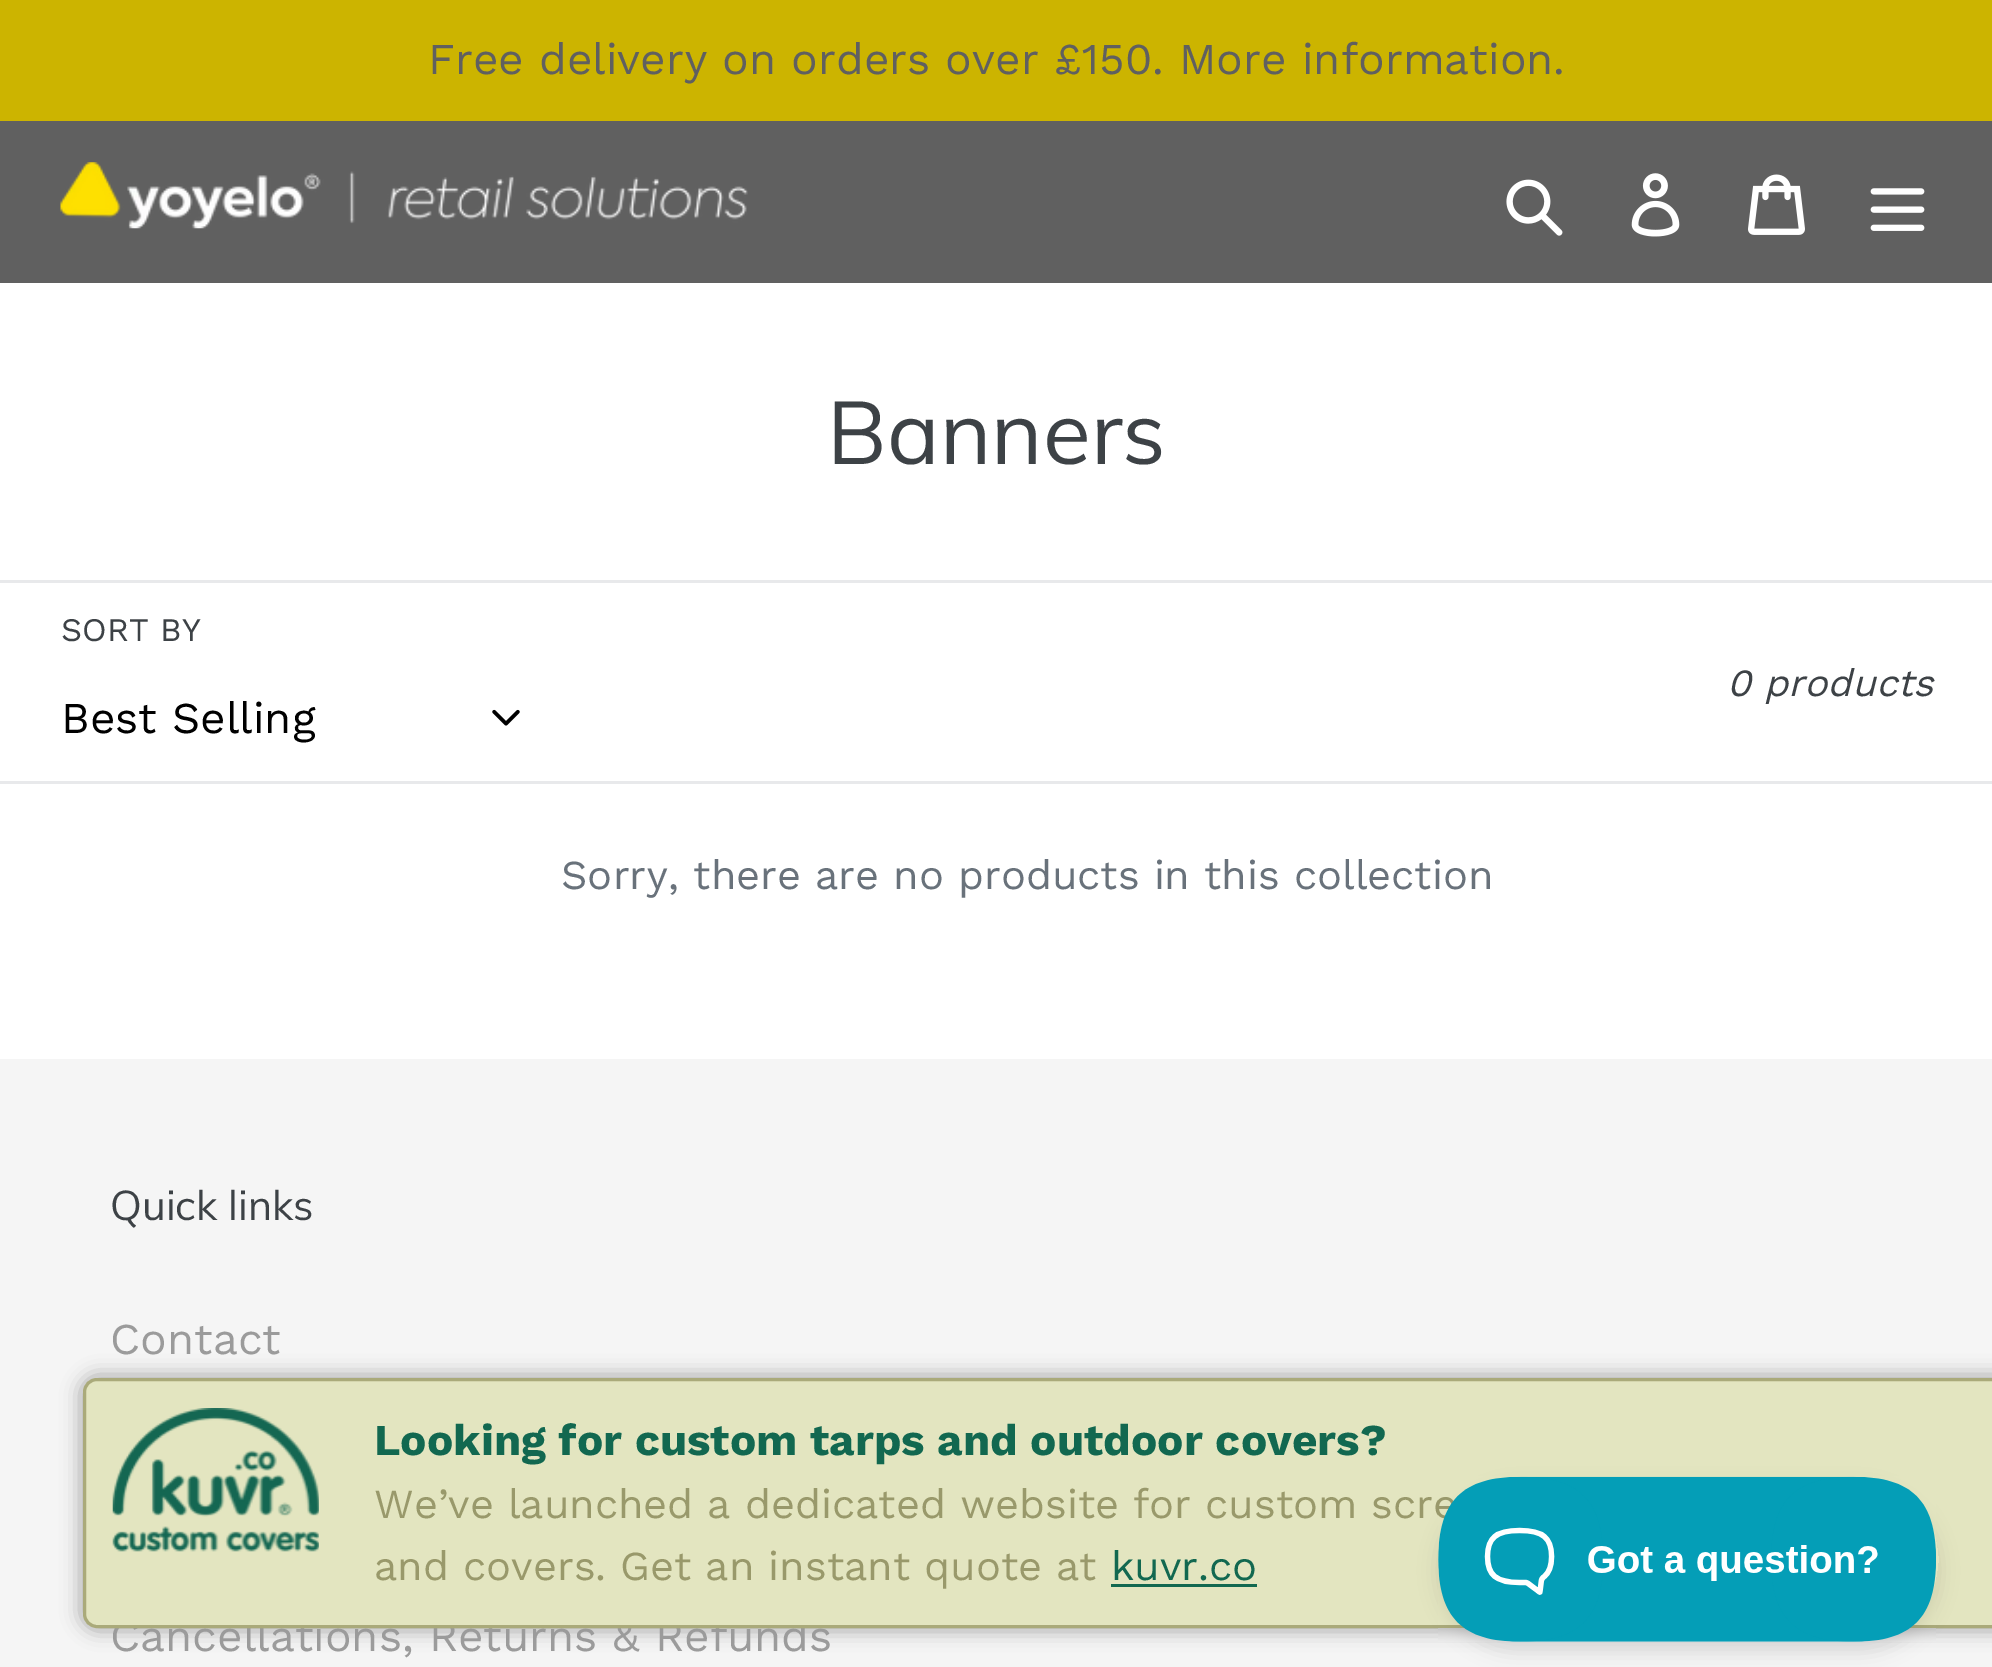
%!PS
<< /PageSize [1992 1667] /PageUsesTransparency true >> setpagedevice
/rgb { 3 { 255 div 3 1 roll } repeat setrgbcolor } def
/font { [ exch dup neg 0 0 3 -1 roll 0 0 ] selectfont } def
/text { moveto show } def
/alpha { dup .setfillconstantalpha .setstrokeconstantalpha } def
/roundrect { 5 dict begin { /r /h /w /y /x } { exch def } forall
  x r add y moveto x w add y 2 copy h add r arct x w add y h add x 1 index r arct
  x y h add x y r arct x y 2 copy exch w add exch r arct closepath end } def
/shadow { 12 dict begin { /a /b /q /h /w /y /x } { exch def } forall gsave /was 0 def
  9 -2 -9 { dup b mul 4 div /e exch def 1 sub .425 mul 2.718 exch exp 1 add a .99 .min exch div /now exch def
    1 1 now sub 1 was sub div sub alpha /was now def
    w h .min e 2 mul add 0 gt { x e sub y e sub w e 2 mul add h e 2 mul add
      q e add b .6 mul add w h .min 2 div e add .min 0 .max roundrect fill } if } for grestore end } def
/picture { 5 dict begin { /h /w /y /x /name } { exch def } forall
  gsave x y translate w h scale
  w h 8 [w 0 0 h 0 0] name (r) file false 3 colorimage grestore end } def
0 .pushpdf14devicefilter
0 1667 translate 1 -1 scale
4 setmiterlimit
255 255 255 rgb
0 0 1992 1667 rectfill
96 96 96 rgb
0 121 1992 162 rectfill
204 180 0 rgb
0 0 1992 121 rectfill
(img_01.rgb) 60 162 688 67 picture
(img_02.rgb) 1506 179 57 57 picture
(img_03.rgb) 1631 173 49 64 picture
(img_04.rgb) 1748 174 57 61 picture
(img_05.rgb) 1870 188 55 43 picture
245 245 245 rgb
0 1059 1992 608 rectfill
92 92 92 rgb
80 1375 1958 256 17 9.5 0.5 shadow
232 233 235 rgb
0 580 1992 3 rectfill
0 781 1992 3 rectfill
(img_07.rgb) 492 709 28 17 picture
/WorkSans-Regular 44 font
96 96 96 rgb
(Free delivery on orders over £150. More information.) 428 74 text
/Muli-Regular 88 font
61 66 70 rgb
(Banners) 827 464 text
/WorkSans-Regular 33 font
(SORT BY) 61 641 text
/WorkSans-Regular 44 font
0 0 0 rgb
(Best Selling) 61 733 text
/WorkSans-Italic 38.5 font
61 66 70 rgb
(0 products) 1727 696 text
/WorkSans-Regular 41.25 font
105 114 123 rgb
(Sorry, there are no products in this collection) 561 889 text
/Muli-Regular 41.25 font
61 66 70 rgb
(Quick links) 110 1220 text
/WorkSans-Regular 44 font
155 155 155 rgb
(Contact) 110 1354 text
(Cancellations, Returns & Refunds) 110 1651 text
227 229 192 rgb
84.5 1379.5 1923 247 12.5 roundrect gsave fill grestore
170 170 122 rgb
3 setlinewidth
stroke
/WorkSans-Regular 41.25 font
18 104 80 rgb
(kuvr.co) 1111 1580 text
1111 1584 146 3 rectfill
153 153 107 rgb
(and covers. Get an instant quote at) 374 1580 text
(We’ve launched a dedicated website for custom scre) 374 1518 text
/WorkSans-Bold 44 font
18 104 80 rgb
(Looking for custom tarps and outdoor covers?) 374 1455 text
(img_06.rgb) 112 1408 207 144 picture
gsave
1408 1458 moveto 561 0 rlineto 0 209 rlineto -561 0 rlineto closepath 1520.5 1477 moveto 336 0 rlineto 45.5 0 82.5 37 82.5 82.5 rcurveto 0 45.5 -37 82.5 -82.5 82.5 rcurveto -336 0 rlineto -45.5 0 -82.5 -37 -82.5 -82.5 rcurveto 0 -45.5 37 -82.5 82.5 -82.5 rcurveto closepath eoclip newpath
0 0 0 rgb
1438 1488 501 165 82.5 9.5 0.1 shadow
grestore
(img_08.rgb) 1438 1476 498 166 picture
.poppdf14devicefilter showpage
